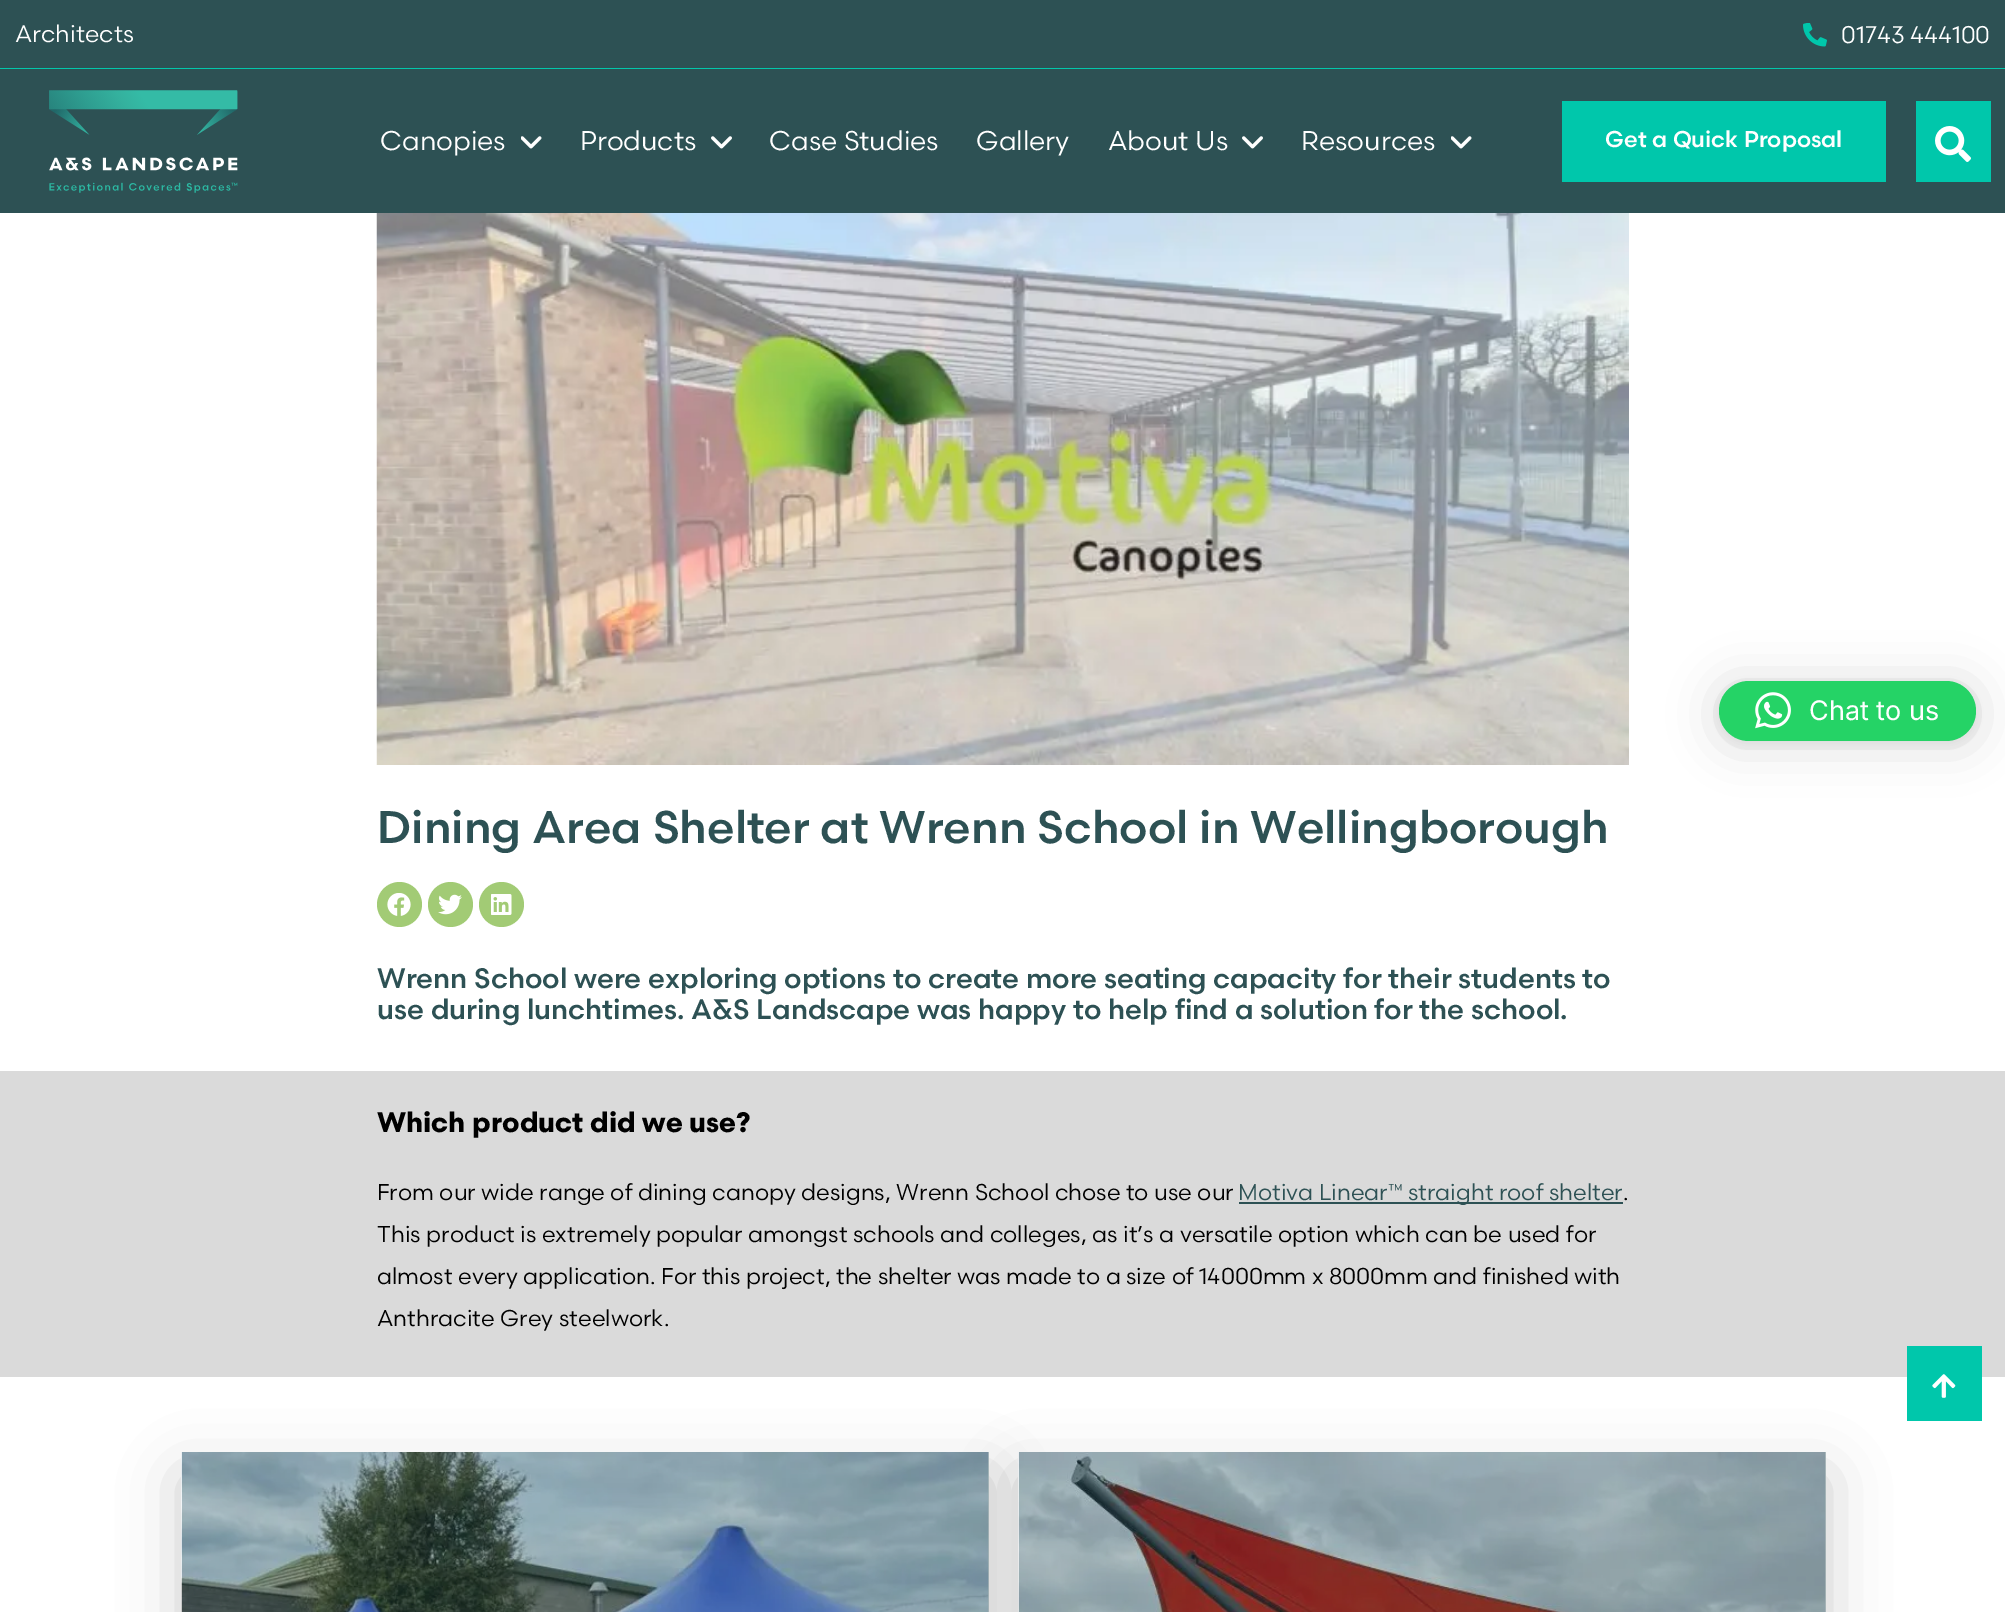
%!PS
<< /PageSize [2005 1612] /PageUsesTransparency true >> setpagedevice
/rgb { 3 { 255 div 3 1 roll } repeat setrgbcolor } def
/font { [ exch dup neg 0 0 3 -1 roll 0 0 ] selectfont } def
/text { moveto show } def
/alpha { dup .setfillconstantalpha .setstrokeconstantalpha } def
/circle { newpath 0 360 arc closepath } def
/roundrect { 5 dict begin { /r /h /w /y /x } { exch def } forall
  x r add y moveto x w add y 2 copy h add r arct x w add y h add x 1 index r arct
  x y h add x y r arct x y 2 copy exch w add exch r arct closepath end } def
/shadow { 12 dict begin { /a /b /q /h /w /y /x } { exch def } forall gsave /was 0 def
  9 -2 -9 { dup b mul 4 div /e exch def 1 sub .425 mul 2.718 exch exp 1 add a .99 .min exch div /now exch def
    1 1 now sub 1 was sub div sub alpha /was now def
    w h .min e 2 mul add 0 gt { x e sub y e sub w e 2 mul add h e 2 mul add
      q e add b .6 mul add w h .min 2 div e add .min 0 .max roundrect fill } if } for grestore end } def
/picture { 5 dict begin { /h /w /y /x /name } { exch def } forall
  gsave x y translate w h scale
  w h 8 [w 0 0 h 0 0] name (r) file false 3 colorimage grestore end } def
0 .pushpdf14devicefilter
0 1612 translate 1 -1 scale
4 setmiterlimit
255 255 255 rgb
0 0 2005 1612 rectfill
45 81 84 rgb
0 0 2005 68 rectfill
3 199 171 rgb
0 68 2005 1 rectfill
(img_01.rgb) 1803 23 24 24 picture
45 81 84 rgb
0 69 2005 144 rectfill
(img_02.rgb) 49 90 189 103 picture
(img_03.rgb) 521 136 21 13 picture
(img_04.rgb) 711 136 21 13 picture
(img_04.rgb) 1242 136 21 13 picture
(img_03.rgb) 1451 136 21 13 picture
0 199 171 rgb
1562 101 324 81 rectfill
1916 101 75 81 rectfill
(img_05.rgb) 1935 126 36 36 picture
0 0 0 rgb
1719 684 257 60 30 24 0.16 shadow
1719 683 257 60 30 4.5 0.06 shadow
37 211 102 rgb
1719 681 257 60 30 roundrect fill
(img_06.rgb) 1755 692 36 37 picture
(img_07.rgb) 376 213 1253 552 picture
162 203 117 rgb
399.5 904.5 22.5 circle fill
(img_08.rgb) 387 893 24 23 picture
450.5 904.5 22.5 circle fill
(img_09.rgb) 438 894 24 21 picture
501.5 904.5 22.5 circle fill
(img_10.rgb) 491 894 21 21 picture
218 218 218 rgb
0 1071 2005 306 rectfill
45 81 84 rgb
1239 1202 384 2 rectfill
0 0 0 rgb
182 1476 807 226 0 30 0.2 shadow
1019 1476 807 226 0 30 0.2 shadow
(img_11.rgb) 181 1452 808 160 picture
0.35 alpha
45 81 84 rgb
182 1452 807 160 rectfill
1 alpha
(img_12.rgb) 1018 1452 808 160 picture
0.35 alpha
1019 1452 807 160 rectfill
1 alpha
0 199 171 rgb
1907 1346 75 75 rectfill
(img_13.rgb) 1932 1374 24 24 picture
/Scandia-Regular 24 font
255 255 255 rgb
(Architects) 15 42 text
(01743 444100) 1841 43 text
/Scandia-Regular 27 font
(Canopies) 380 150 text
(Products) 580 150 text
(Case Studies) 769 150 text
(Gallery) 976 150 text
(About Us) 1108 150 text
(Resources) 1301 150 text
/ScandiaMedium-Medium 22.8 font
(Get a Quick Proposal) 1605 147 text
/Inter-Regular 27 font
(Chat to us) 1809 720 text
/ScandiaMedium-Medium 45.6 font
45 81 84 rgb
(Dining Area Shelter at Wrenn School in Wellingborough) 377 843 text
/ScandiaMedium-Medium 28.05 font
(Wrenn School were exploring options to create more seating capacity for their students to) 377 988 text
(use during lunchtimes. A&S Landscape was happy to help find a solution for the school.) 377 1019 text
/Scandia-Bold 28.05 font
0 0 0 rgb
(Which product did we use?) 377 1132 text
/Scandia-Regular 22.8 font
(From our wide range of dining canopy designs, Wrenn School chose to use our) 377 1200 text
45 81 84 rgb
(Motiva Linear™ straight roof shelter) 1238 1200 text
0 0 0 rgb
(.) 1623 1200 text
(This product is extremely popular amongst schools and colleges, as it’s a versatile option which can be used for) 377 1242 text
(almost every application. For this project, the shelter was made to a size of 14000mm x 8000mm and finished with) 377 1284 text
(Anthracite Grey steelwork.) 377 1326 text
.poppdf14devicefilter showpage
